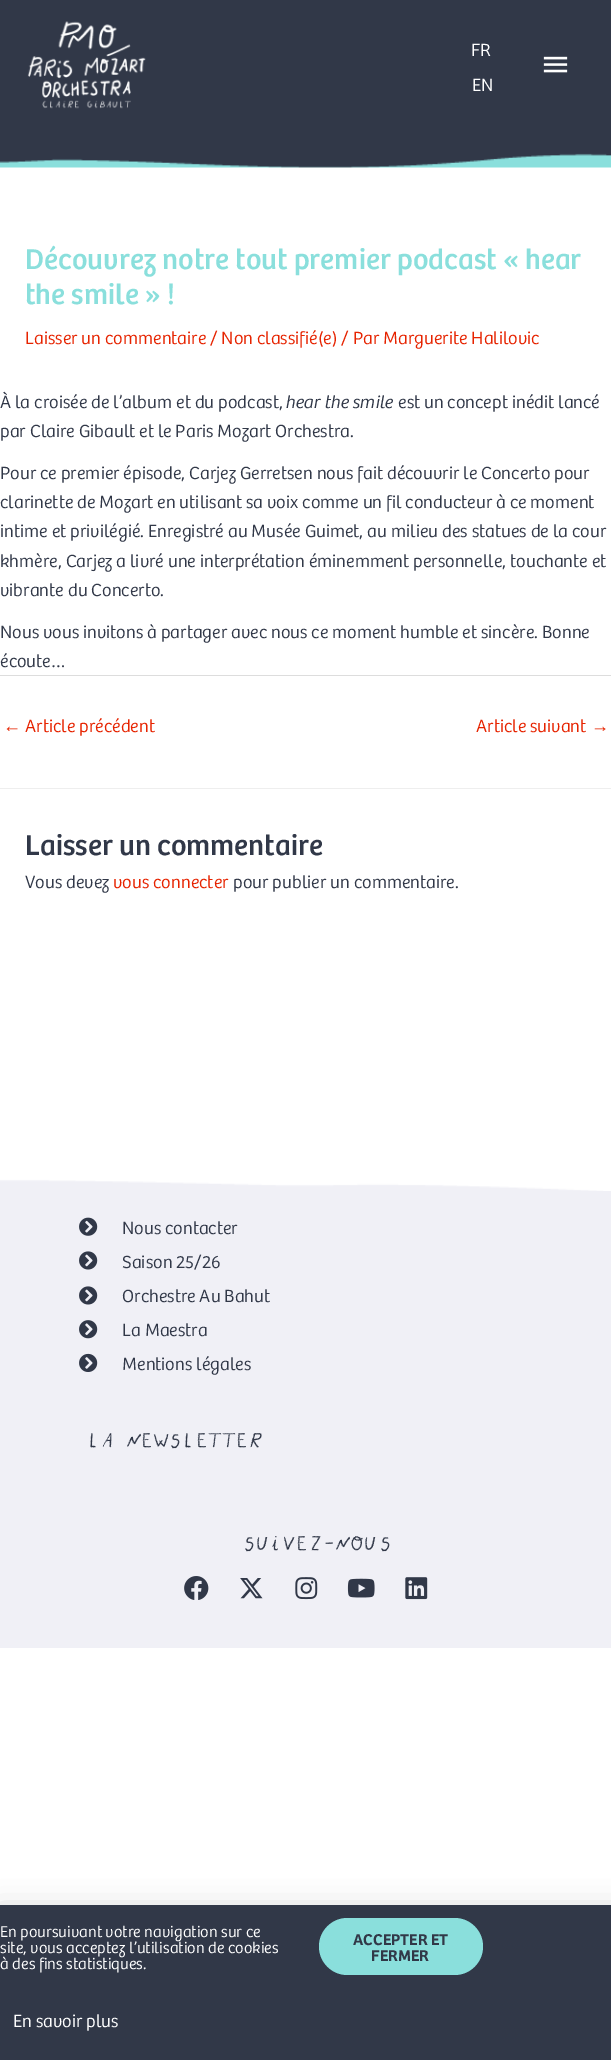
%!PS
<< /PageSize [611 2060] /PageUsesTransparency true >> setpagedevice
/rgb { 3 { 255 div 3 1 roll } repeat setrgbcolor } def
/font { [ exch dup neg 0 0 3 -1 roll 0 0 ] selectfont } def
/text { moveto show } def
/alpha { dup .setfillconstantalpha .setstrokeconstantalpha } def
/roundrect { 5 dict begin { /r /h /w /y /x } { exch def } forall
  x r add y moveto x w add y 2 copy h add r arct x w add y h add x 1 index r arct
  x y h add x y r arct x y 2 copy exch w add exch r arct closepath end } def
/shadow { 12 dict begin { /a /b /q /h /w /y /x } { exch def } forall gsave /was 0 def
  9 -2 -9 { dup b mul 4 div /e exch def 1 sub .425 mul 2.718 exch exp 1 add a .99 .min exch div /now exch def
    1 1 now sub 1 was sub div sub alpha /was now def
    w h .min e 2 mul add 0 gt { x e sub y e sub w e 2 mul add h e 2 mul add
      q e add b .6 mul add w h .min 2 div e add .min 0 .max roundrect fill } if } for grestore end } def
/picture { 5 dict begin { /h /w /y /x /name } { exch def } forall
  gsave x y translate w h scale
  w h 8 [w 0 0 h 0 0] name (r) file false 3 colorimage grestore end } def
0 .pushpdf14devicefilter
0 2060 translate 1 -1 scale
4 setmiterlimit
255 255 255 rgb
0 0 611 2060 rectfill
(img_01.rgb) 0 0 611 168 picture
(img_02.rgb) 27 21 119 88 picture
(img_03.rgb) 543 56 25 17 picture
221 221 221 rgb
0 675 611 1 rectfill
238 238 238 rgb
0 788 611 1 rectfill
240 240 246 rgb
0 1179 611 469 rectfill
(img_04.rgb) 0 1150 611 41 picture
(img_05.rgb) 79 1217 19 19 picture
(img_06.rgb) 79 1251 19 19 picture
(img_06.rgb) 79 1286 19 19 picture
(img_07.rgb) 79 1320 19 19 picture
(img_08.rgb) 79 1353 19 19 picture
(img_09.rgb) 184 1576 25 24 picture
(img_10.rgb) 240 1578 23 21 picture
(img_11.rgb) 295 1577 23 23 picture
(img_12.rgb) 347 1578 28 20 picture
(img_13.rgb) 405 1577 23 23 picture
0 0 0 rgb
-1 1911 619 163 0 14.5 0.2 shadow
49 56 72 rgb
0 1905 611 155 rectfill
138 223 220 rgb
319 1918 164 57 28.5 roundrect fill
/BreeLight-Light 18.25 font
255 255 255 rgb
(FR) 471 56 text
(EN) 472 91 text
/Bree-Regular 29.6 font
138 223 220 rgb
(Découvrez notre tout premier podcast « hear) 25 269 text
(the smile » !) 25 304 text
/BreeLight-Light 18.25 font
230 35 0 rgb
(Laisser un commentaire / Non classifié\(e\) / Par Marguerite Halilovic) 25 344 text
49 56 72 rgb
(À la croisée de l’album et du podcast,) 0 408 text
/BreeLight-LightItalic 18.25 font
(hear the smile) 286 408 text
/BreeLight-Light 18.25 font
(est un concept inédit lancé) 398 408 text
(par Claire Gibault et le Paris Mozart Orchestra.) 0 437 text
(Pour ce premier épisode, Carjez Gerretsen nous fait découvrir le Concerto pour) 0 479 text
(clarinette de Mozart en utilisant sa voix comme un fil conducteur à ce moment) 0 508 text
(intime et privilégié. Enregistré au Musée Guimet, au milieu des statues de la cour) 0 537 text
(khmère, Carjez a livré une interprétation éminemment personnelle, touchante et) 0 567 text
(vibrante du Concerto.) 0 596 text
(Nous vous invitons à partager avec nous ce moment humble et sincère. Bonne) 0 638 text
(écoute…) 0 667 text
/LiberationSans-Regular 18.25 font
230 35 0 rgb
(←) 3 732 text
/BreeLight-Light 18.25 font
(Article précédent) 25 732 text
(Article suivant) 476 732 text
/LiberationSans-Regular 18.25 font
(→) 591 732 text
/Bree-Regular 29.6 font
49 56 72 rgb
(Laisser un commentaire) 25 855 text
/BreeLight-Light 18.25 font
(Vous devez) 25 888 text
230 35 0 rgb
(vous connecter) 113 888 text
49 56 72 rgb
(pour publier un commentaire.) 233 888 text
(Nous contacter) 122 1234 text
(Saison 25/26) 122 1268 text
(Orchestre Au Bahut) 122 1302 text
(La Maestra) 122 1336 text
(Mentions légales) 122 1370 text
/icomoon-Regular 29.25 font
86 1453 moveto -0.6 0 (la newsletter) ashow
241 1556 moveto -0.6 0 (suivez-nous) ashow
/BreeLight-Light 16.25 font
255 255 255 rgb
(En poursuivant votre navigation sur ce) 0 1937 text
(site, vous acceptez l’utilisation de cookies) 0 1953 text
(à des fins statistiques.) 0 1969 text
/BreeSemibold-SemiBold 16.25 font
49 56 72 rgb
(ACCEPTER ET) 353 1945 text
(FERMER) 371 1961 text
/BreeLight-Light 18.25 font
255 255 255 rgb
(En savoir plus) 13 2027 text
.poppdf14devicefilter showpage
